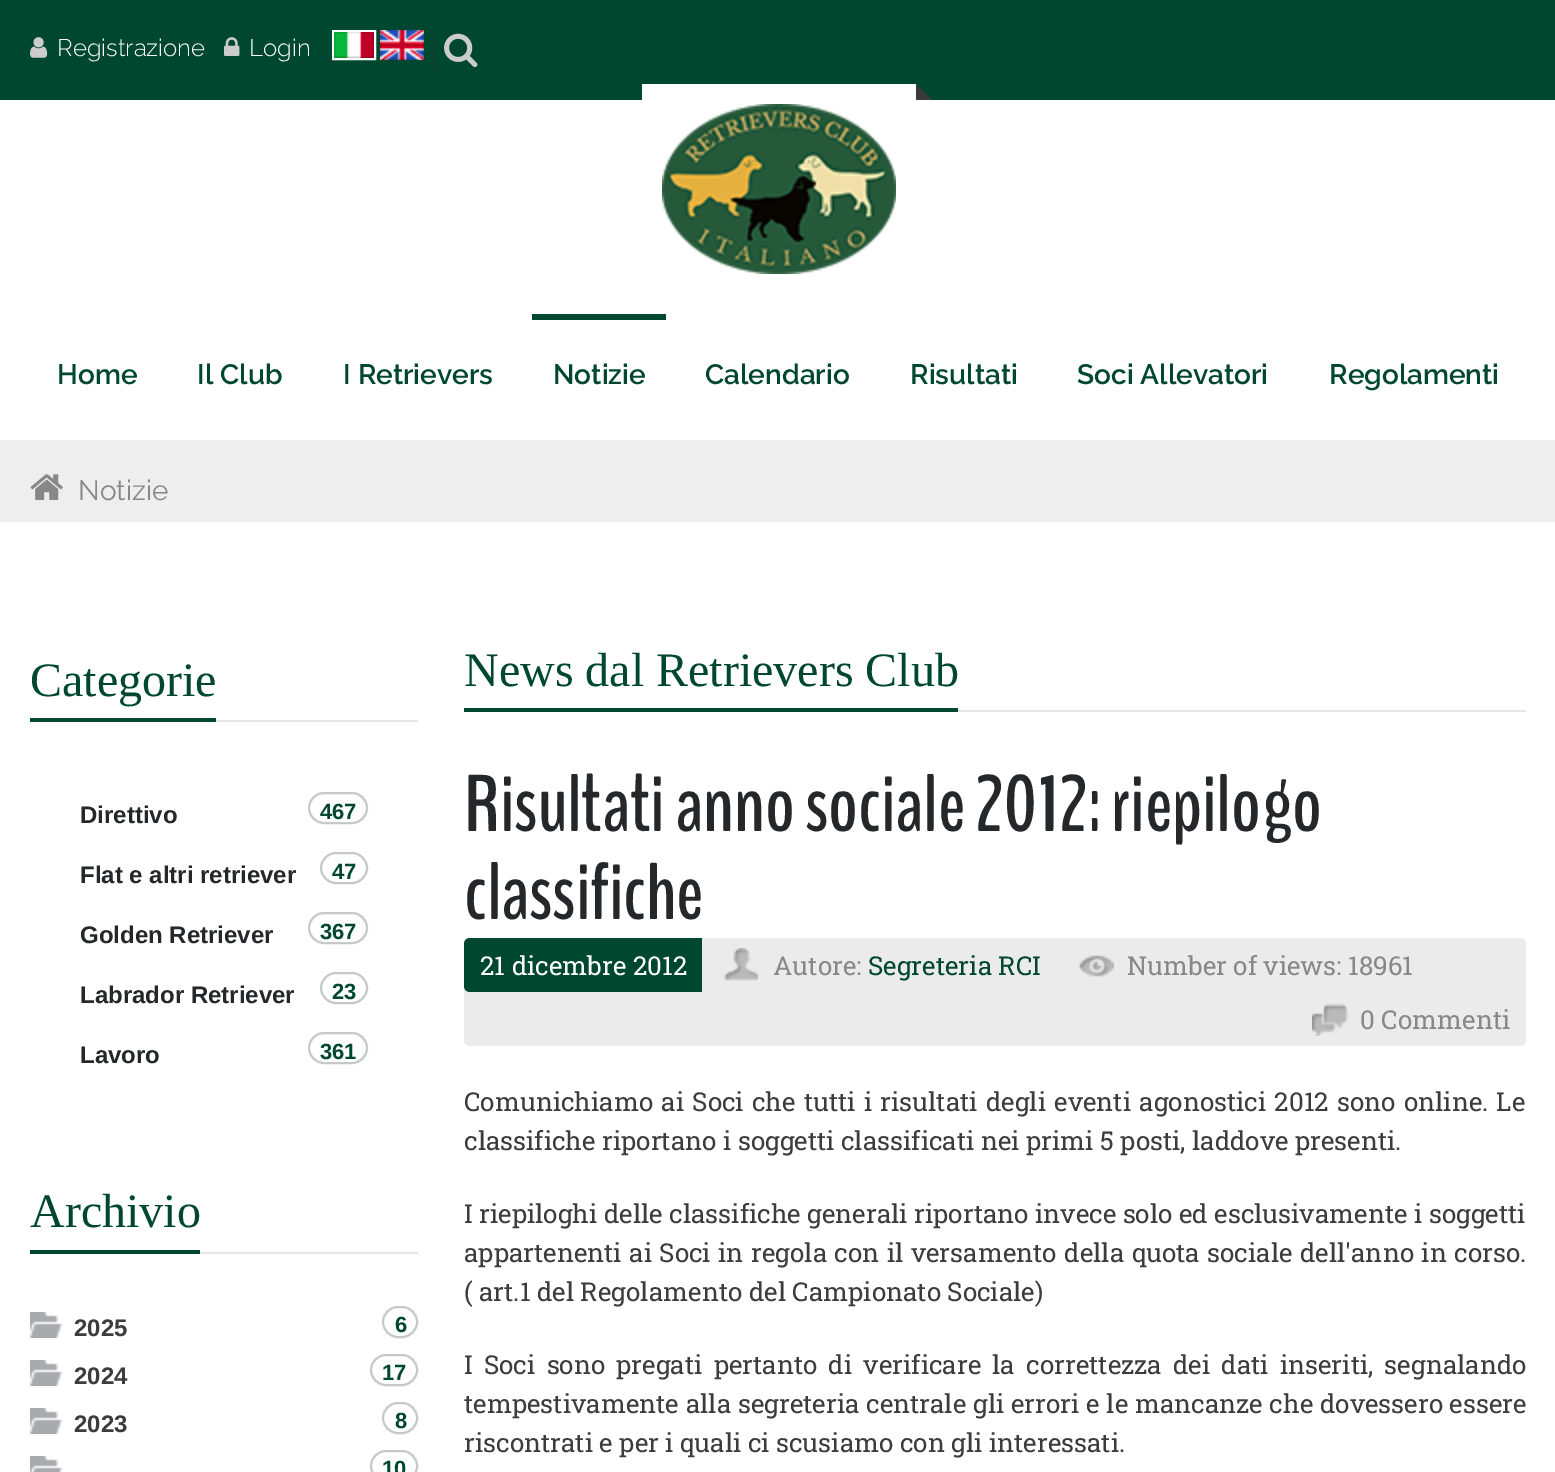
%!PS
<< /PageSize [1555 1472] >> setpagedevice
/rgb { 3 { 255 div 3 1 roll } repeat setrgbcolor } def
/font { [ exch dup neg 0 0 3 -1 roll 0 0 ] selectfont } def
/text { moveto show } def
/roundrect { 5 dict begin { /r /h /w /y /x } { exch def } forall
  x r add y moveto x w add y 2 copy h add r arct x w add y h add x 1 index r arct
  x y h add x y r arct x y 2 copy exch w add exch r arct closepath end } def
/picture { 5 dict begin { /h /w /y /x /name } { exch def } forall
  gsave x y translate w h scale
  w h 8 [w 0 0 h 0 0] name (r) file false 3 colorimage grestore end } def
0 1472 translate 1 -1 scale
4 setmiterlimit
255 255 255 rgb
0 0 1555 1472 rectfill
0 71 47 rgb
0 0 1555 100 rectfill
(img_01.rgb) 30 37 18 21 picture
(img_02.rgb) 224 37 16 19 picture
255 255 255 rgb
2 setlinewidth
333 31 42 28 rectstroke
(img_03.rgb) 380 30 44 30 picture
(img_04.rgb) 334 32 40 26 picture
15 65 48 rgb
432 30 2 40 rectfill
(img_05.rgb) 444 33 34 35 picture
255 255 255 rgb
642 84 moveto 274 0 rlineto 0 202 rlineto 0 4.5 -3.5 8 -8 8 rcurveto -258 0 rlineto -4.5 0 -8 -3.5 -8 -8 rcurveto closepath fill
58 58 58 rgb
932 100 moveto -16 0 rlineto 0 -16 rlineto closepath fill
(img_06.rgb) 662 104 234 170 picture
0 71 47 rgb
532 314 134 6 rectfill
238 238 238 rgb
0 440 1555 82 rectfill
(img_07.rgb) 30 474 33 26 picture
229 231 230 rgb
216 720 202 2 rectfill
0 71 47 rgb
30 718 186 4 rectfill
198 201 203 rgb
309 793 58 30 15 roundrect stroke
321 853 46 30 15 roundrect stroke
309 913 58 30 15 roundrect stroke
321 973 46 30 15 roundrect stroke
309 1033 58 30 15 roundrect stroke
229 231 230 rgb
200 1252 218 2 rectfill
0 71 47 rgb
30 1250 170 4 rectfill
(img_08.rgb) 30 1312 33 26 picture
198 201 203 rgb
383 1307 34 30 15 roundrect stroke
(img_08.rgb) 30 1360 33 26 picture
371 1355 46 30 15 roundrect stroke
(img_08.rgb) 30 1408 33 26 picture
383 1403 34 30 15 roundrect stroke
(img_09.rgb) 30 1456 33 16 picture
371 1451 46 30 15 roundrect stroke
229 231 230 rgb
958 710 568 2 rectfill
0 71 47 rgb
464 708 494 4 rectfill
235 235 235 rgb
464 938 1062 108 6 roundrect fill
0 71 47 rgb
470 938 moveto 232 0 rlineto 0 54 rlineto -232 0 rlineto -3.5 0 -6 -2.5 -6 -6 rcurveto 0 -42 rlineto 0 -3.5 2.5 -6 6 -6 rcurveto closepath fill
(img_10.rgb) 724 948 35 33 picture
(img_11.rgb) 1078 955 36 22 picture
(img_12.rgb) 1312 1003 36 33 picture
/Raleway-Light 24 font
255 255 255 rgb
(Registrazione) 57 56 text
(Login) 249 56 text
/Raleway-SemiBold 28 font
0 71 47 rgb
(Home) 57 384 text
(Il Club) 197 384 text
(I Retrievers) 343 384 text
(Notizie) 553 384 text
(Calendario) 705 384 text
(Risultati) 910 384 text
(Soci Allevatori) 1077 384 text
(Regolamenti) 1329 384 text
/Raleway-Regular 28 font
136 136 136 rgb
(Notizie) 78 500 text
/LiberationSerif-Regular 48 font
0 71 47 rgb
(Categorie) 30 696 text
/LiberationSans-Bold 24 font
37 40 42 rgb
(Direttivo) 80 823 text
/LiberationSans-Bold 22 font
0 71 47 rgb
(467) 320 819 text
/LiberationSans-Bold 24 font
37 40 42 rgb
(Flat e altri retriever) 80 883 text
/LiberationSans-Bold 22 font
0 71 47 rgb
(47) 332 879 text
/LiberationSans-Bold 24 font
37 40 42 rgb
(Golden Retriever) 80 943 text
/LiberationSans-Bold 22 font
0 71 47 rgb
(367) 320 939 text
/LiberationSans-Bold 24 font
37 40 42 rgb
(Labrador Retriever) 80 1003 text
/LiberationSans-Bold 22 font
0 71 47 rgb
(23) 332 999 text
/LiberationSans-Bold 24 font
37 40 42 rgb
(Lavoro) 80 1063 text
/LiberationSans-Bold 22 font
0 71 47 rgb
(361) 320 1059 text
/LiberationSerif-Regular 48 font
(Archivio) 30 1227 text
/LiberationSans-Bold 24 font
60 60 60 rgb
(2025) 74 1336 text
/LiberationSans-Bold 22 font
0 71 47 rgb
(6) 395 1332 text
/LiberationSans-Bold 24 font
60 60 60 rgb
(2024) 74 1384 text
/LiberationSans-Bold 22 font
0 71 47 rgb
(17) 382 1380 text
/LiberationSans-Bold 24 font
60 60 60 rgb
(2023) 74 1432 text
/LiberationSans-Bold 22 font
0 71 47 rgb
(8) 395 1428 text
(10) 382 1476 text
/LiberationSerif-Regular 48 font
(News dal Retrievers Club) 464 686 text
/BenchNine-Bold 80 font
37 40 42 rgb
(Risultati anno sociale 2012: riepilogo) 464 831 text
(classifiche) 464 919 text
/RobotoSlab-Regular 26 font
255 255 255 rgb
(21 dicembre 2012) 480 975 text
136 136 136 rgb
(Autore:) 773 975 text
0 71 47 rgb
(Segreteria RCI) 868 975 text
136 136 136 rgb
(Number of views: 18961) 1127 975 text
(0 Commenti) 1360 1029 text
60 60 60 rgb
464 1111 moveto 1.75 0 32 (Comunichiamo ai Soci che tutti i risultati degli eventi agonostici 2012 sono online. Le) widthshow
(classifiche riportano i soggetti classificati nei primi 5 posti, laddove presenti.) 464 1150 text
(I riepiloghi delle classifiche generali riportano invece solo ed esclusivamente i soggetti) 464 1223 text
464 1262 moveto 1 0 32 (appartenenti ai Soci in regola con il versamento della quota sociale dell'anno in corso.) widthshow
(\( art.1 del Regolamento del Campionato Sociale\)) 464 1301 text
464 1374 moveto 4.75 0 32 (I Soci sono pregati pertanto di verificare la correttezza dei dati inseriti, segnalando) widthshow
464 1413 moveto 0.25 0 32 (tempestivamente alla segreteria centrale gli errori e le mancanze che dovessero essere) widthshow
(riscontrati e per i quali ci scusiamo con gli interessati.) 464 1452 text
showpage
